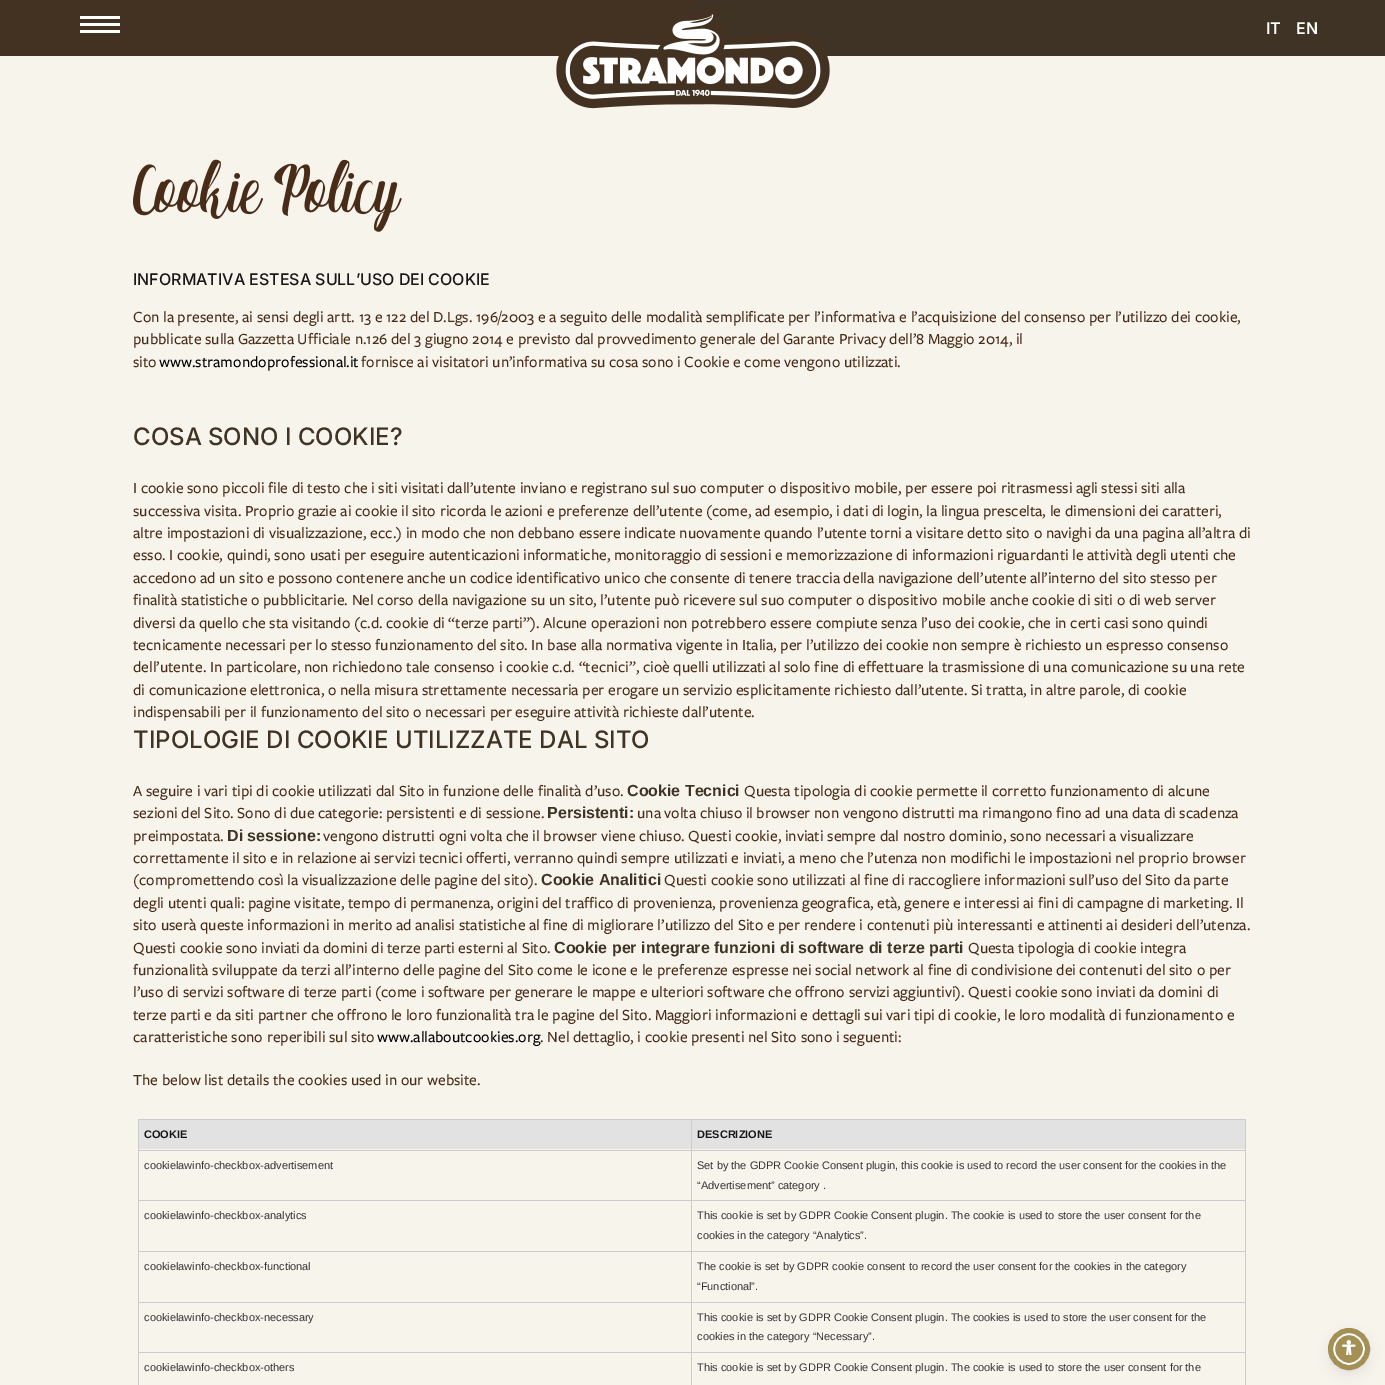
%!PS
<< /PageSize [1385 1385] /PageUsesTransparency true >> setpagedevice
/rgb { 3 { 255 div 3 1 roll } repeat setrgbcolor } def
/font { [ exch dup neg 0 0 3 -1 roll 0 0 ] selectfont } def
/text { moveto show } def
/alpha { dup .setfillconstantalpha .setstrokeconstantalpha } def
/circle { newpath 0 360 arc closepath } def
/roundrect { 5 dict begin { /r /h /w /y /x } { exch def } forall
  x r add y moveto x w add y 2 copy h add r arct x w add y h add x 1 index r arct
  x y h add x y r arct x y 2 copy exch w add exch r arct closepath end } def
/shadow { 12 dict begin { /a /b /q /h /w /y /x } { exch def } forall gsave /was 0 def
  9 -2 -9 { dup b mul 4 div /e exch def 1 sub .425 mul 2.718 exch exp 1 add a .99 .min exch div /now exch def
    1 1 now sub 1 was sub div sub alpha /was now def
    w h .min e 2 mul add 0 gt { x e sub y e sub w e 2 mul add h e 2 mul add
      q e add b .6 mul add w h .min 2 div e add .min 0 .max roundrect fill } if } for grestore end } def
/picture { 5 dict begin { /h /w /y /x /name } { exch def } forall
  gsave x y translate w h scale
  w h 8 [w 0 0 h 0 0] name (r) file false 3 colorimage grestore end } def
0 .pushpdf14devicefilter
0 1385 translate 1 -1 scale
4 setmiterlimit
247 244 236 rgb
0 0 1385 1385 rectfill
67 50 34 rgb
0 0 693 56 rectfill
62 51 36 rgb
693 0 692 56 rectfill
255 255 255 rgb
80 16 40 3 0.5 roundrect fill
80 23 40 3 0.5 roundrect fill
80 30 40 3 0.5 roundrect fill
(img_01.rgb) 556 5 274 104 picture
(img_02.rgb) 133 159 269 73 picture
204 204 204 rgb
138 1119 1108 1 rectfill
138 1119 1 266 rectfill
226 226 226 rgb
139 1120 552 29 rectfill
204 204 204 rgb
691 1352 1 33 rectfill
1245 1119 1 266 rectfill
691 1352 555 1 rectfill
691 1302 1 51 rectfill
691 1302 555 1 rectfill
691 1251 1 52 rectfill
691 1251 555 1 rectfill
691 1200 1 52 rectfill
691 1200 555 1 rectfill
691 1150 1 51 rectfill
691 1150 555 1 rectfill
691 1119 1 32 rectfill
138 1150 554 1 rectfill
226 226 226 rgb
692 1120 553 29 rectfill
204 204 204 rgb
138 1200 554 1 rectfill
138 1251 554 1 rectfill
138 1302 554 1 rectfill
138 1352 554 1 rectfill
93 100 148 rgb
1333 1335 32 32 16 2 0.2 shadow
37 44 97 rgb
1333 1338 32 32 16 7.5 0.15 shadow
164 143 85 rgb
1349 1349 15 circle gsave fill grestore
255 255 255 rgb
2 setlinewidth
stroke
164 143 85 rgb
5 setlinewidth
1349 1349 18.5 circle stroke
(img_03.rgb) 1342 1340 14 15 picture
/Inter-SemiBold 16 font
255 255 255 rgb
(IT) 1266 34 text
(EN) 1296 34 text
/Inter-Medium 16 font
23 23 23 rgb
(INFORMATIVA ESTESA SULL’USO DEI COOKIE) 133 285 text
/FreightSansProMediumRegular-Medium 16 font
72 44 24 rgb
(Con la presente, ai sensi degli artt. 13 e 122 del D.Lgs. 196/2003 e a seguito delle modalità semplificate per l’informativa e l’acquisizione del consenso per l’utilizzo dei cookie,) 133 322 text
(pubblicate sulla Gazzetta Ufficiale n.126 del 3 giugno 2014 e previsto dal provvedimento generale del Garante Privacy dell’8 Maggio 2014, il) 133 344 text
(sito) 133 367 text
0 0 0 rgb
(www.stramondoprofessional.it) 159 367 text
72 44 24 rgb
(fornisce ai visitatori un’informativa su cosa sono i Cookie e come vengono utilizzati.) 361 367 text
/Inter-Medium 24 font
62 51 36 rgb
(COSA SONO I COOKIE?) 133 445 text
/FreightSansProMediumRegular-Medium 16 font
72 44 24 rgb
(I cookie sono piccoli file di testo che i siti visitati dall’utente inviano e registrano sul suo computer o dispositivo mobile, per essere poi ritrasmessi agli stessi siti alla) 133 493 text
(successiva visita. Proprio grazie ai cookie il sito ricorda le azioni e preferenze dell’utente \(come, ad esempio, i dati di login, la lingua prescelta, le dimensioni dei caratteri,) 133 516 text
(altre impostazioni di visualizzazione, ecc.\) in modo che non debbano essere indicate nuovamente quando l’utente torni a visitare detto sito o navighi da una pagina all’altra di) 133 538 text
(esso. I cookie, quindi, sono usati per eseguire autenticazioni informatiche, monitoraggio di sessioni e memorizzazione di informazioni riguardanti le attività degli utenti che) 133 560 text
(accedono ad un sito e possono contenere anche un codice identificativo unico che consente di tenere traccia della navigazione dell’utente all’interno del sito stesso per) 133 583 text
(finalità statistiche o pubblicitarie. Nel corso della navigazione su un sito, l’utente può ricevere sul suo computer o dispositivo mobile anche cookie di siti o di web server) 133 605 text
(diversi da quello che sta visitando \(c.d. cookie di “terze parti”\). Alcune operazioni non potrebbero essere compiute senza l’uso dei cookie, che in certi casi sono quindi) 133 628 text
(tecnicamente necessari per lo stesso funzionamento del sito. In base alla normativa vigente in Italia, per l’utilizzo dei cookie non sempre è richiesto un espresso consenso) 133 650 text
(dell’utente. In particolare, non richiedono tale consenso i cookie c.d. “tecnici”, cioè quelli utilizzati al solo fine di effettuare la trasmissione di una comunicazione su una rete) 133 672 text
(di comunicazione elettronica, o nella misura strettamente necessaria per erogare un servizio esplicitamente richiesto dall’utente. Si tratta, in altre parole, di cookie) 133 695 text
(indispensabili per il funzionamento del sito o necessari per eseguire attività richieste dall’utente.) 133 717 text
/Inter-Medium 24 font
62 51 36 rgb
(TIPOLOGIE DI COOKIE UTILIZZATE DAL SITO) 133 748 text
/FreightSansProMediumRegular-Medium 16 font
72 44 24 rgb
(A seguire i vari tipi di cookie utilizzati dal Sito in funzione delle finalità d’uso.) 133 796 text
/LiberationSans-Bold 16 font
62 51 36 rgb
(Cookie Tecnici) 627 796 text
/FreightSansProMediumRegular-Medium 16 font
72 44 24 rgb
(Questa tipologia di cookie permette il corretto funzionamento di alcune) 744 796 text
(sezioni del Sito. Sono di due categorie: persistenti e di sessione.) 133 818 text
/LiberationSans-Bold 16 font
62 51 36 rgb
(Persistenti:) 547 818 text
/FreightSansProMediumRegular-Medium 16 font
72 44 24 rgb
(una volta chiuso il browser non vengono distrutti ma rimangono fino ad una data di scadenza) 637 818 text
(preimpostata.) 133 841 text
/LiberationSans-Bold 16 font
62 51 36 rgb
(Di sessione:) 227 841 text
/FreightSansProMediumRegular-Medium 16 font
72 44 24 rgb
(vengono distrutti ogni volta che il browser viene chiuso. Questi cookie, inviati sempre dal nostro dominio, sono necessari a visualizzare) 323 841 text
(correttamente il sito e in relazione ai servizi tecnici offerti, verranno quindi sempre utilizzati e inviati, a meno che l’utenza non modifichi le impostazioni nel proprio browser) 133 863 text
(\(compromettendo così la visualizzazione delle pagine del sito\).) 133 885 text
/LiberationSans-Bold 16 font
62 51 36 rgb
(Cookie Analitici) 541 885 text
/FreightSansProMediumRegular-Medium 16 font
72 44 24 rgb
(Questi cookie sono utilizzati al fine di raccogliere informazioni sull’uso del Sito da parte) 664 885 text
(degli utenti quali: pagine visitate, tempo di permanenza, origini del traffico di provenienza, provenienza geografica, età, genere e interessi ai fini di campagne di marketing. Il) 133 908 text
(sito userà queste informazioni in merito ad analisi statistiche al fine di migliorare l’utilizzo del Sito e per rendere i contenuti più interessanti e attinenti ai desideri dell’utenza.) 133 930 text
(Questi cookie sono inviati da domini di terze parti esterni al Sito.) 133 953 text
/LiberationSans-Bold 16 font
62 51 36 rgb
(Cookie per integrare funzioni di software di terze parti) 554 953 text
/FreightSansProMediumRegular-Medium 16 font
72 44 24 rgb
(Questa tipologia di cookie integra) 968 953 text
(funzionalità sviluppate da terzi all’interno delle pagine del Sito come le icone e le preferenze espresse nei social network al fine di condivisione dei contenuti del sito o per) 133 975 text
(l’uso di servizi software di terze parti \(come i software per generare le mappe e ulteriori software che offrono servizi aggiuntivi\). Questi cookie sono inviati da domini di) 133 997 text
(terze parti e da siti partner che offrono le loro funzionalità tra le pagine del Sito. Maggiori informazioni e dettagli sui vari tipi di cookie, le loro modalità di funzionamento e) 133 1020 text
(caratteristiche sono reperibili sul sito) 133 1042 text
0 0 0 rgb
(www.allaboutcookies.org) 377 1042 text
72 44 24 rgb
(. Nel dettaglio, i cookie presenti nel Sito sono i seguenti:) 540 1042 text
(The below list details the cookies used in our website.) 133 1085 text
/LiberationSans-Bold 11 font
23 23 23 rgb
(COOKIE) 144 1138 text
(DESCRIZIONE) 697 1138 text
/LiberationSans-Regular 11 font
51 51 51 rgb
(cookielawinfo-checkbox-advertisement) 144 1169 text
(Set by the GDPR Cookie Consent plugin, this cookie is used to record the user consent for the cookies in the) 697 1169 text
(“Advertisement” category .) 697 1189 text
(cookielawinfo-checkbox-analytics) 144 1219 text
(This cookie is set by GDPR Cookie Consent plugin. The cookie is used to store the user consent for the) 697 1219 text
(cookies in the category “Analytics”.) 697 1239 text
(cookielawinfo-checkbox-functional) 144 1270 text
(The cookie is set by GDPR cookie consent to record the user consent for the cookies in the category) 697 1270 text
(“Functional”.) 697 1290 text
(cookielawinfo-checkbox-necessary) 144 1321 text
(This cookie is set by GDPR Cookie Consent plugin. The cookies is used to store the user consent for the) 697 1321 text
(cookies in the category “Necessary”.) 697 1340 text
(cookielawinfo-checkbox-others) 144 1371 text
(This cookie is set by GDPR Cookie Consent plugin. The cookie is used to store the user consent for the) 697 1371 text
.poppdf14devicefilter showpage
